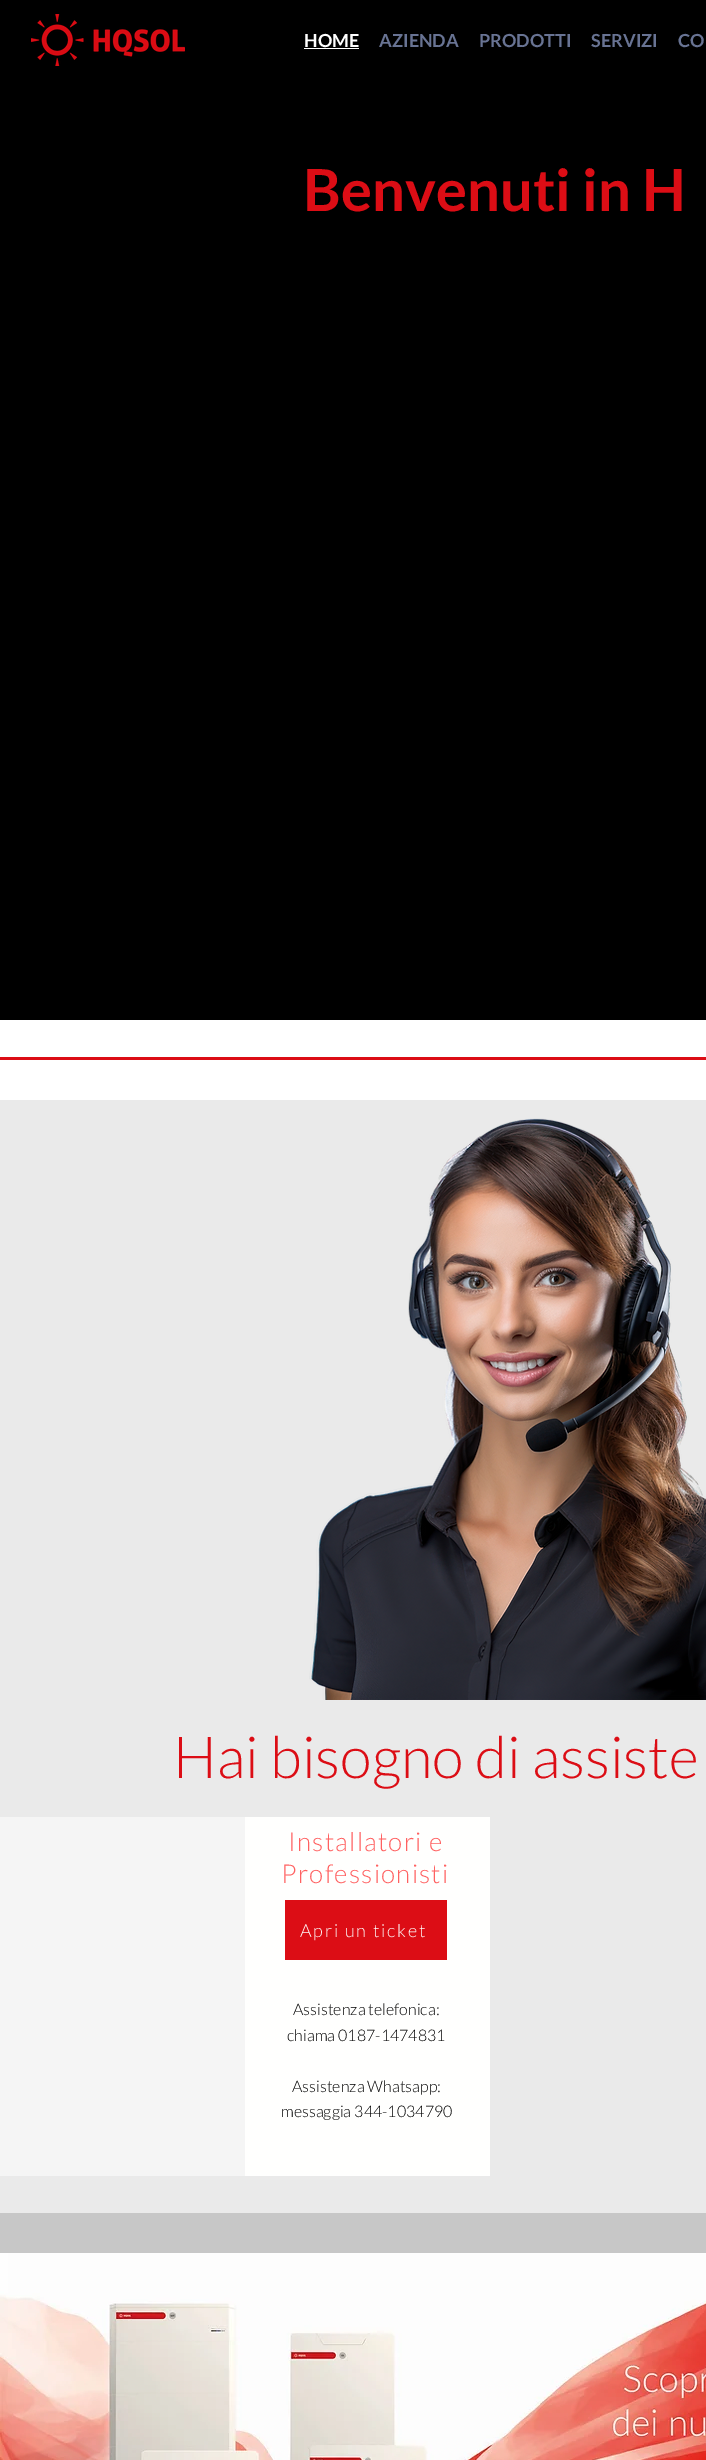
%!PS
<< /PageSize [706 2460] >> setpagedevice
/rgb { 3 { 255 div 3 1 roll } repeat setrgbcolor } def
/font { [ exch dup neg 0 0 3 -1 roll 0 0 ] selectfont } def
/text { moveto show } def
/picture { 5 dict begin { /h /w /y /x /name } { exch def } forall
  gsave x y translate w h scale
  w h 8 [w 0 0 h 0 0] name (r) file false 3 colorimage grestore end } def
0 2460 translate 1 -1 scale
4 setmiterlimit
255 255 255 rgb
0 0 706 2460 rectfill
0 0 0 rgb
0 0 706 1020 rectfill
(img_01.rgb) 31 14 154 52 picture
255 255 255 rgb
304 48 55 1 rectfill
220 13 21 rgb
0 1057 706 3 rectfill
234 234 234 rgb
0 1100 706 1113 rectfill
(img_02.rgb) 309 1118 397 582 picture
245 245 245 rgb
0 1817 245 359 rectfill
255 255 254 rgb
245 1817 245 359 rectfill
220 13 21 rgb
285 1900 162 60 rectfill
199 199 199 rgb
0 2213 706 40 rectfill
(img_03.rgb) 0 2253 706 207 picture
/Lato-Bold 18 font
255 255 255 rgb
(HOME) 304 47 text
104 115 147 rgb
(AZIENDA) 379 47 text
(PRODOTTI) 479 47 text
(SERVIZI) 591 47 text
(CO) 678 47 text
/Lato-Bold 58 font
220 13 21 rgb
(Benvenuti in H) 303 211 text
/Lato-Light 58 font
(Hai bisogno di assiste) 173 1778 text
/Lato-Light 26 font
255 97 97 rgb
288 1851 moveto 1.25 0 (Installatori e) ashow
281 1883 moveto 1.25 0 (Professionisti) ashow
/Lato-Light 18 font
255 255 255 rgb
300 1937 moveto 1.75 0 (Apri un ticket) ashow
/Lato-Light 16 font
0 0 0 rgb
(Assistenza telefonica:) 293 2015 text
(chiama 0187-1474831) 287 2041 text
(Assistenza Whatsapp:) 292 2092 text
(messaggia 344-1034790) 281 2117 text
showpage
